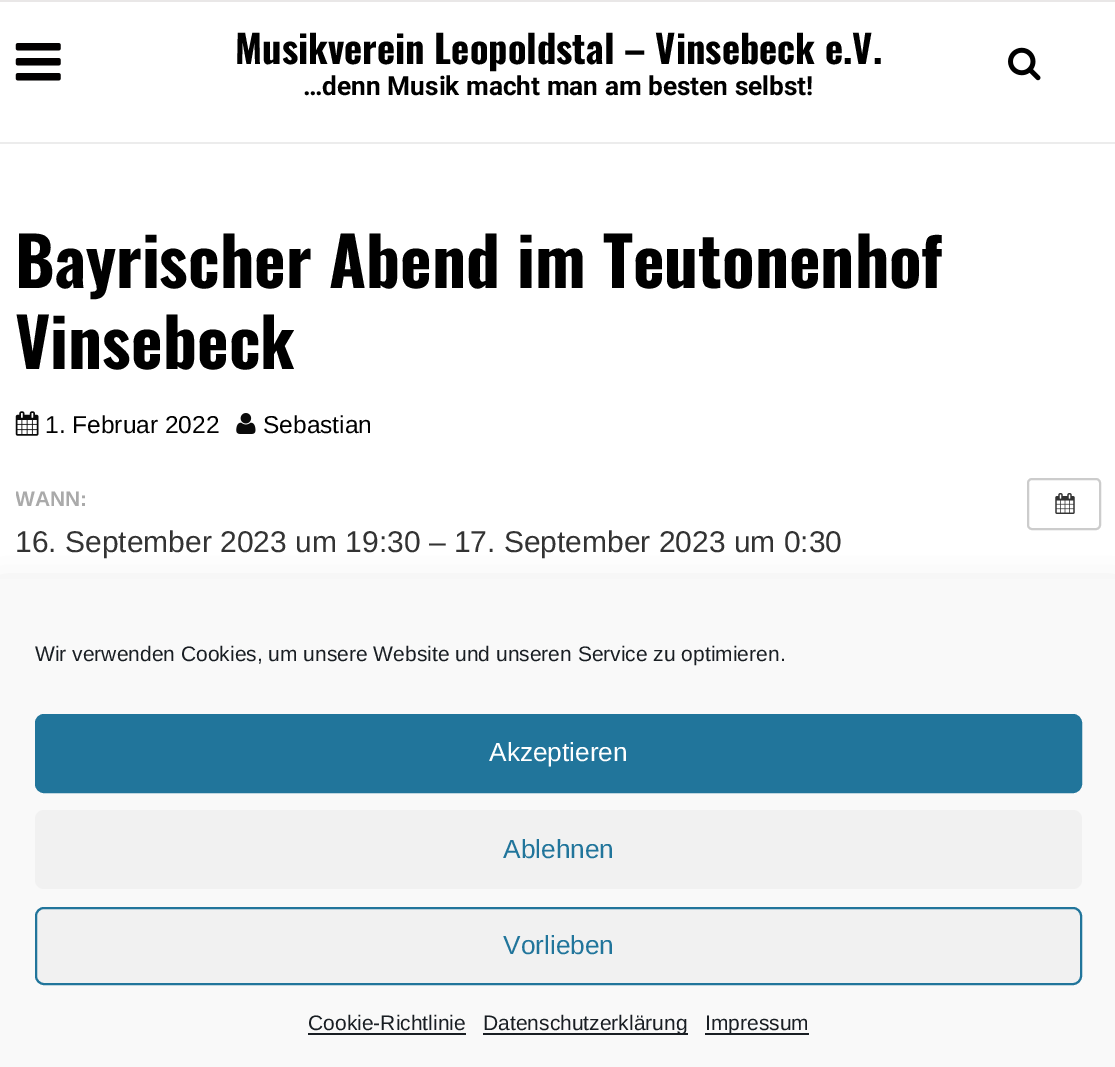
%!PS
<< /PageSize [1115 1067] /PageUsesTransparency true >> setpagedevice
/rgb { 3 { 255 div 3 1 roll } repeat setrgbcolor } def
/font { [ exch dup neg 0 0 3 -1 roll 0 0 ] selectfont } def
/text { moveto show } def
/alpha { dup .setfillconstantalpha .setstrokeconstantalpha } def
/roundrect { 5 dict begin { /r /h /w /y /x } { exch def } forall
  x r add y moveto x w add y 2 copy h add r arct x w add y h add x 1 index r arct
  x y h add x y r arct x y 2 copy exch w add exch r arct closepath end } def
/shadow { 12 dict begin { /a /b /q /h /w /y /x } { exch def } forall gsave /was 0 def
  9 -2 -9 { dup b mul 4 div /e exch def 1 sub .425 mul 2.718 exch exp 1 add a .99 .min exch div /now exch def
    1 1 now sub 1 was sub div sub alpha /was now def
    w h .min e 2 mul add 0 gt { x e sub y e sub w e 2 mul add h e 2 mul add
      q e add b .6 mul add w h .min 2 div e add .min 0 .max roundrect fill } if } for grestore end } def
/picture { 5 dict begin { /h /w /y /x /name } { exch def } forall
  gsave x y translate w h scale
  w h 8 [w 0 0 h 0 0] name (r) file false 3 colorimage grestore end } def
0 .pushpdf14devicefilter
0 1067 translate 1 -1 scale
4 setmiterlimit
255 255 255 rgb
0 0 1115 1067 rectfill
236 236 236 rgb
0 142 1115 2 rectfill
233 231 231 rgb
0 0 1115 2 rectfill
(img_01.rgb) 15 43 46 38 picture
(img_02.rgb) 1008 47 33 34 picture
(img_03.rgb) 15 411 24 25 picture
(img_04.rgb) 236 413 20 21 picture
204 204 204 rgb
2 setlinewidth
1028 479 72 50 4 roundrect stroke
(img_05.rgb) 1055 493 20 21 picture
0 0 0 rgb
0 595 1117 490 0 17.5 0.19 shadow
249 249 249 rgb
0 579 1115 488 rectfill
33 117 155 rgb
36 715 1045 77 8 roundrect gsave fill grestore
stroke
241 241 241 rgb
35 810 1047 79 9 roundrect fill
36 908 1045 76 8 roundrect gsave fill grestore
33 117 155 rgb
stroke
25 30 35 rgb
308 1033 158 2 rectfill
483 1033 205 2 rectfill
705 1033 104 2 rectfill
/Oswald-Bold 38.5 font
0 0 0 rgb
(Musikverein Leopoldstal – Vinsebeck e.V.) 235 64 text
/Roboto-Bold 26.25 font
(…denn Musik macht man am besten selbst!) 303 95 text
/Oswald-Bold 67.4 font
(Bayrischer Abend im Teutonenhof) 15 288 text
(Vinsebeck) 15 369 text
/LiberationSans-Regular 24.5 font
(1. Februar 2022) 45 433 text
(Sebastian) 263 433 text
gsave
16 478 994 301 rectclip
/LiberationSans-Bold 21 font
170 170 170 rgb
(WANN:) 15 506 text
grestore
/LiberationSans-Regular 30 font
51 51 51 rgb
(16. September 2023 um 19:30 – 17. September 2023 um 0:30) 15 552 text
/LiberationSans-Regular 21 font
25 30 35 rgb
(Wir verwenden Cookies, um unsere Website und unseren Service zu optimieren.) 35 661 text
/LiberationSans-Regular 26.25 font
255 255 255 rgb
(Akzeptieren) 489 761 text
33 117 155 rgb
(Ablehnen) 503 858 text
(Vorlieben) 503 954 text
/LiberationSans-Regular 21 font
25 30 35 rgb
(Cookie-Richtlinie) 308 1030 text
(Datenschutzerklärung) 483 1030 text
(Impressum) 705 1030 text
.poppdf14devicefilter showpage
